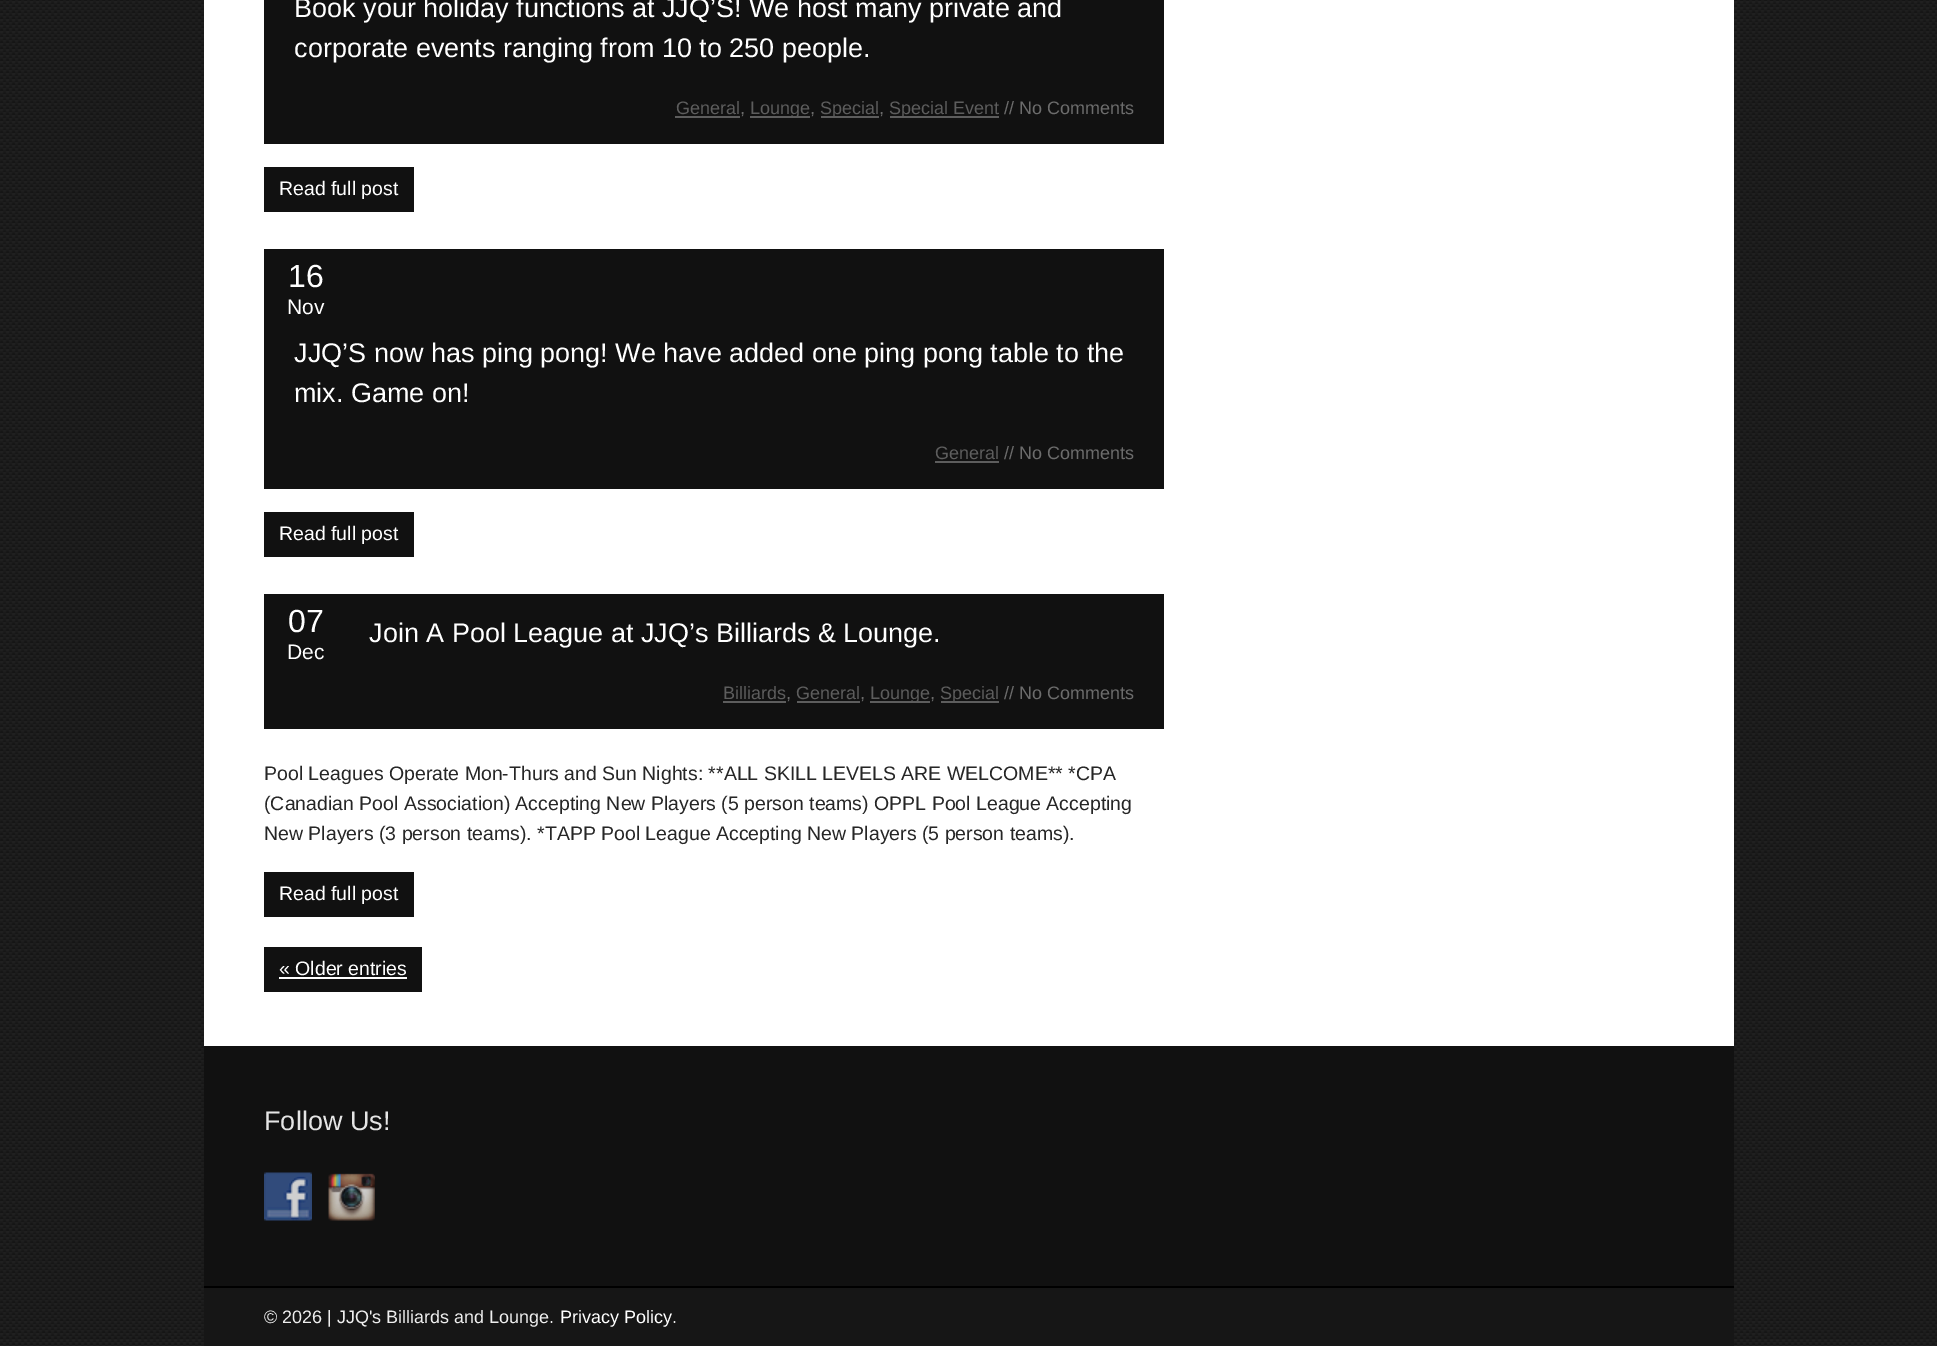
%!PS
<< /PageSize [1937 1346] >> setpagedevice
/rgb { 3 { 255 div 3 1 roll } repeat setrgbcolor } def
/font { [ exch dup neg 0 0 3 -1 roll 0 0 ] selectfont } def
/text { moveto show } def
/picture { 5 dict begin { /h /w /y /x /name } { exch def } forall
  gsave x y translate w h scale
  w h 8 [w 0 0 h 0 0] name (r) file false 3 colorimage grestore end } def
0 1346 translate 1 -1 scale
4 setmiterlimit
255 255 255 rgb
0 0 1937 1346 rectfill
(img_01.rgb) 0 0 1937 1346 picture
204 0 1530 1046 rectfill
17 17 17 rgb
264 0 900 144 rectfill
93 93 93 rgb
675 116 65 2 rectfill
750 116 60 2 rectfill
821 116 58 2 rectfill
890 116 109 2 rectfill
17 17 17 rgb
264 167 150 45 rectfill
264 249 900 240 rectfill
93 93 93 rgb
935 461 64 2 rectfill
17 17 17 rgb
264 512 150 45 rectfill
264 594 900 135 rectfill
93 93 93 rgb
723 701 63 2 rectfill
797 701 63 2 rectfill
870 701 60 2 rectfill
941 701 58 2 rectfill
17 17 17 rgb
264 872 150 45 rectfill
264 947 158 45 rectfill
255 255 255 rgb
279 977 128 2 rectfill
17 17 17 rgb
204 1046 1530 240 rectfill
(img_02.rgb) 264 1172 48 49 picture
(img_03.rgb) 328 1173 47 48 picture
22 22 22 rgb
204 1288 1530 58 rectfill
0 0 0 rgb
204 1286 1530 2 rectfill
/LiberationSans-Regular 27 font
255 255 255 rgb
(Book your holiday functions at JJQ’S! We host many private and) 294 17 text
(corporate events ranging from 10 to 250 people.) 294 57 text
/LiberationSans-Regular 18 font
93 93 93 rgb
(General) 676 114 text
108 108 108 rgb
(,) 740 114 text
93 93 93 rgb
(Lounge) 750 114 text
108 108 108 rgb
(,) 810 114 text
93 93 93 rgb
(Special) 820 114 text
108 108 108 rgb
(,) 879 114 text
93 93 93 rgb
(Special Event) 889 114 text
108 108 108 rgb
(// No Comments) 1004 114 text
/LiberationSans-Regular 19.5 font
255 255 255 rgb
(Read full post) 279 195 text
/LiberationSans-Regular 32 font
(16) 288 287 text
/LiberationSans-Regular 21 font
(Nov) 287 314 text
/LiberationSans-Regular 27 font
(JJQ’S now has ping pong! We have added one ping pong table to the) 294 362 text
(mix. Game on!) 294 402 text
/LiberationSans-Regular 18 font
93 93 93 rgb
(General) 935 459 text
108 108 108 rgb
(// No Comments) 1004 459 text
/LiberationSans-Regular 19.5 font
255 255 255 rgb
(Read full post) 279 540 text
/LiberationSans-Regular 32 font
(07) 288 632 text
/LiberationSans-Regular 21 font
(Dec) 287 659 text
/LiberationSans-Regular 27 font
(Join A Pool League at JJQ’s Billiards & Lounge.) 369 642 text
/LiberationSans-Regular 18 font
93 93 93 rgb
(Billiards) 723 699 text
108 108 108 rgb
(,) 786 699 text
93 93 93 rgb
(General) 796 699 text
108 108 108 rgb
(,) 860 699 text
93 93 93 rgb
(Lounge) 870 699 text
108 108 108 rgb
(,) 930 699 text
93 93 93 rgb
(Special) 940 699 text
108 108 108 rgb
(// No Comments) 1004 699 text
/LiberationSans-Regular 19.5 font
38 38 38 rgb
(Pool Leagues Operate Mon-Thurs and Sun Nights: **ALL SKILL LEVELS ARE WELCOME** *CPA) 264 780 text
(\(Canadian Pool Association\) Accepting New Players \(5 person teams\) OPPL Pool League Accepting) 264 810 text
(New Players \(3 person teams\). *TAPP Pool League Accepting New Players \(5 person teams\).) 264 840 text
255 255 255 rgb
(Read full post) 279 900 text
(« Older entries) 279 975 text
/LiberationSans-Regular 27 font
229 229 229 rgb
(Follow Us!) 264 1130 text
/LiberationSans-Regular 18 font
238 238 238 rgb
(© 2026 | JJQ's Billiards and Lounge.) 264 1323 text
255 255 255 rgb
(Privacy Policy) 560 1323 text
238 238 238 rgb
(.) 672 1323 text
showpage
